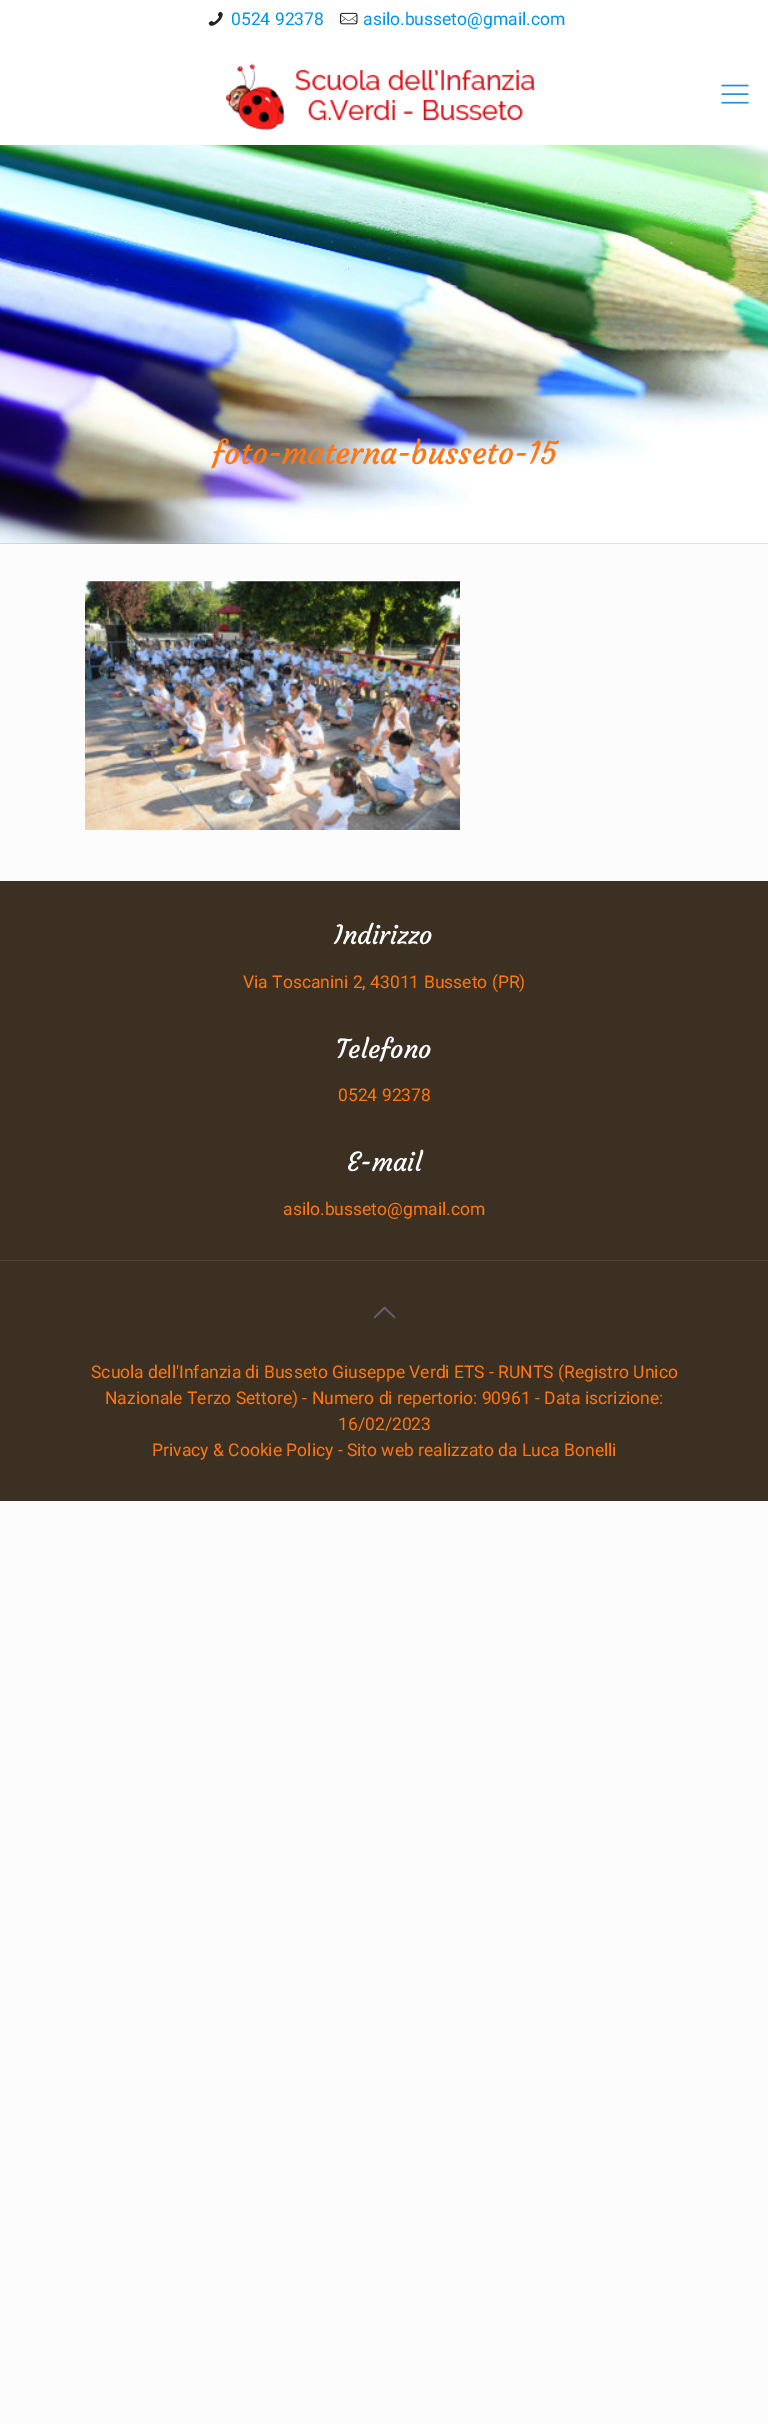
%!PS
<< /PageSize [768 2424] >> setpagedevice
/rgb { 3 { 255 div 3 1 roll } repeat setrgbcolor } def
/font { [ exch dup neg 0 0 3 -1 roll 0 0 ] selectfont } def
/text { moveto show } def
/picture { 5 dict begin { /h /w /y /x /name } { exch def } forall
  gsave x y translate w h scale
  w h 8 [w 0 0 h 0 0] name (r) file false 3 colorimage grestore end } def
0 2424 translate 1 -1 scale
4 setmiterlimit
252 252 252 rgb
0 0 768 2424 rectfill
(img_01.rgb) 0 145 768 399 picture
255 255 255 rgb
0 0 768 145 rectfill
(img_02.rgb) 208 11 15 15 picture
(img_03.rgb) 340 12 18 13 picture
(img_04.rgb) 225 63 311 67 picture
(img_05.rgb) 721 84 28 20 picture
(img_06.rgb) 85 581 375 249 picture
60 48 35 rgb
0 881 768 620 rectfill
80 69 57 rgb
0 1260 768 1 rectfill
(img_07.rgb) 373 1306 23 13 picture
/Roboto-Regular 17.5 font
0 149 235 rgb
(0524 92378) 231 25 text
(asilo.busseto@gmail.com) 363 25 text
/Courgette-Regular 31.25 font
255 119 19 rgb
(foto-materna-busseto-15) 212 464 text
/Courgette-Regular 26 font
255 255 255 rgb
(Indirizzo) 334 944 text
/Roboto-Regular 17.5 font
255 119 19 rgb
(Via Toscanini 2, 43011 Busseto \(PR\)) 243 988 text
/Courgette-Regular 26 font
255 255 255 rgb
(Telefono) 336 1058 text
/Roboto-Regular 17.5 font
255 119 19 rgb
(0524 92378) 338 1101 text
/Courgette-Regular 26 font
255 255 255 rgb
(E-mail) 347 1171 text
/Roboto-Regular 17.5 font
255 119 19 rgb
(asilo.busseto@gmail.com) 283 1215 text
(Scuola dell'Infanzia di Busseto Giuseppe Verdi ETS - RUNTS \(Registro Unico) 91 1378 text
(Nazionale Terzo Settore\) - Numero di repertorio: 90961 - Data iscrizione:) 105 1404 text
(16/02/2023) 338 1430 text
(Privacy & Cookie Policy - Sito web realizzato da Luca Bonelli) 152 1456 text
showpage
